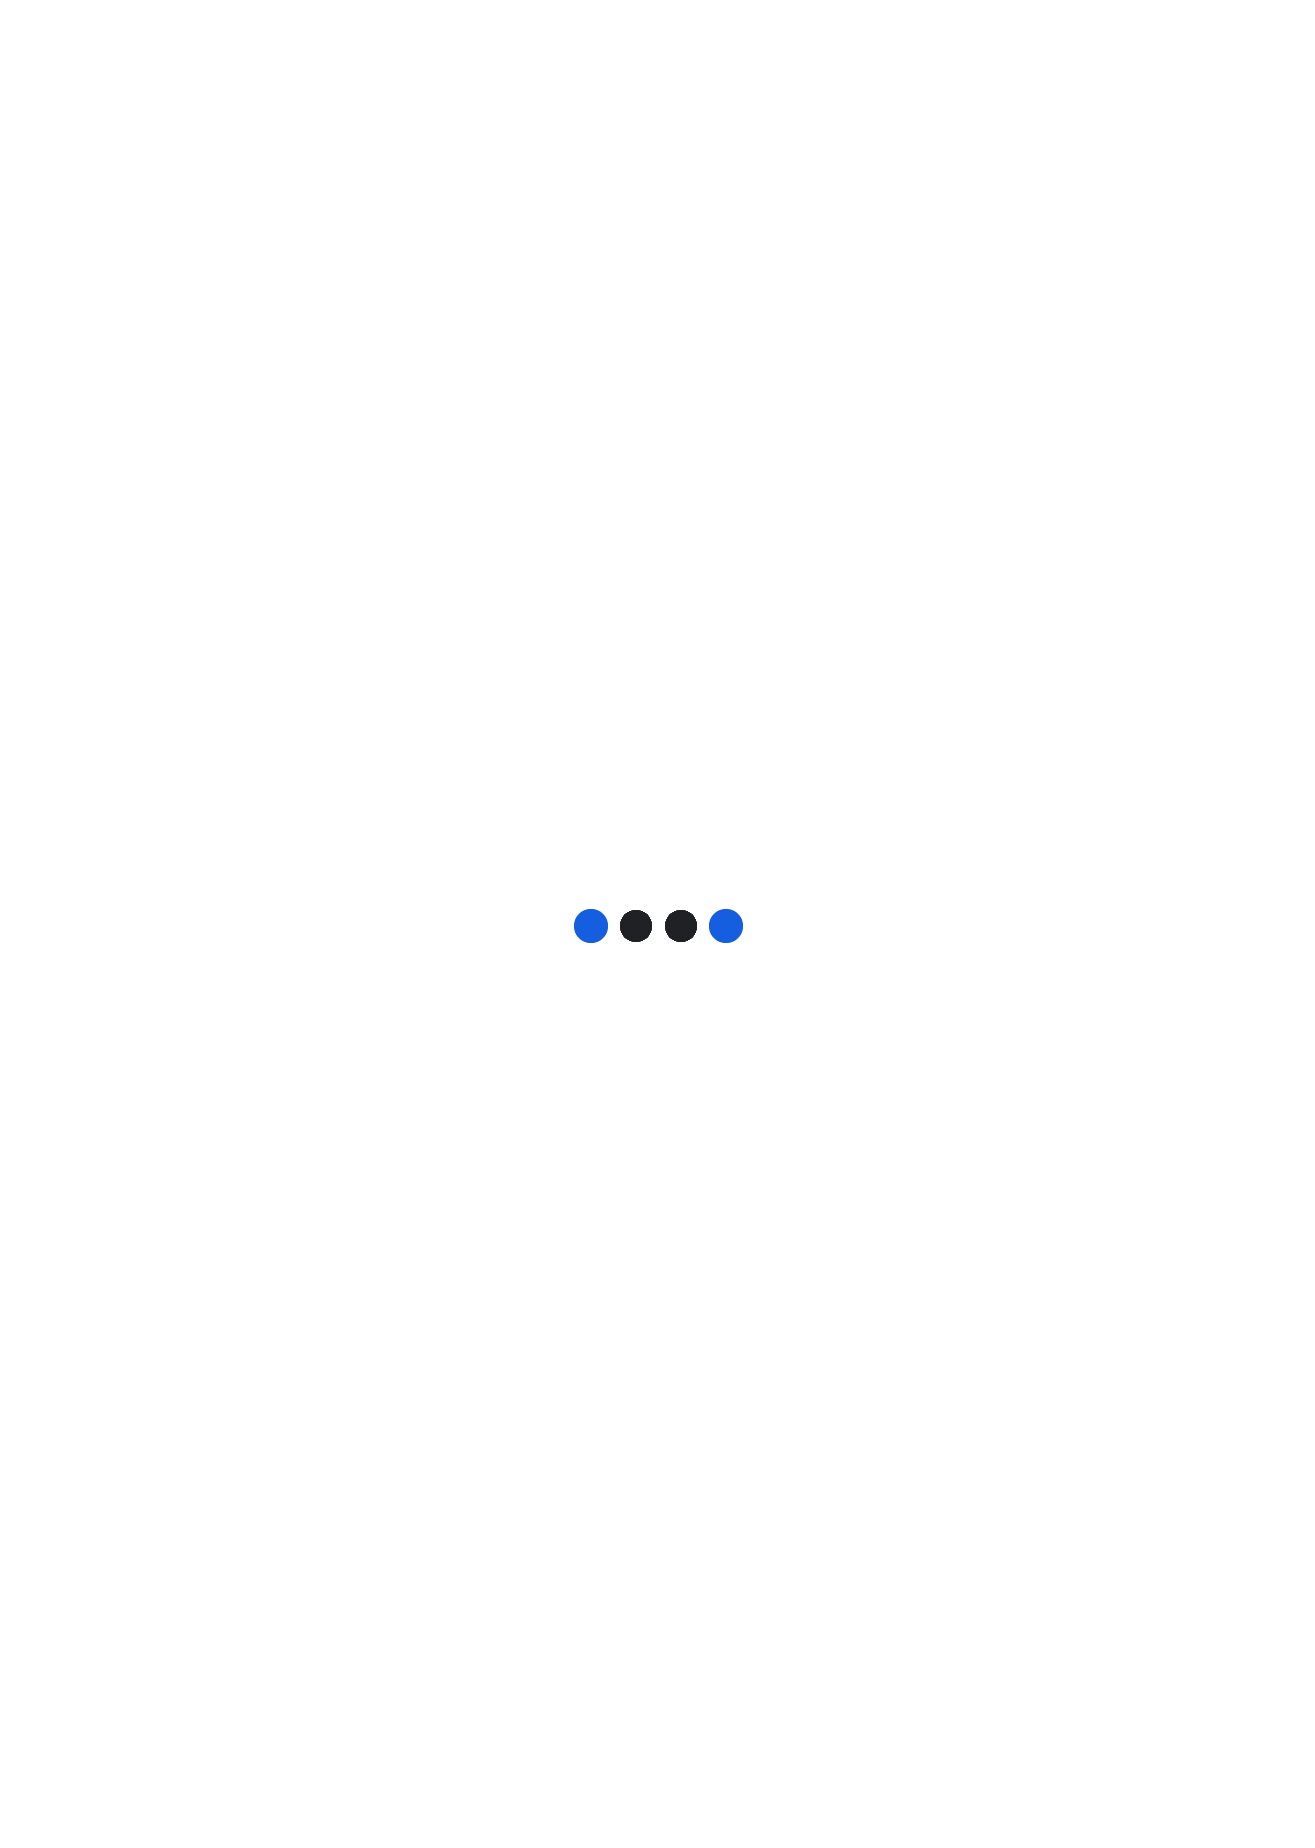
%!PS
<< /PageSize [1315 1848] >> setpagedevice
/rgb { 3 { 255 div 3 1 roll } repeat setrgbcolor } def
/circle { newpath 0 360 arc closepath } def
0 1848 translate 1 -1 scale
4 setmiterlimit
255 255 255 rgb
0 0 1315 1848 rectfill
gsave 664 909 moveto 34 0 rlineto 0 34 rlineto -34 0 rlineto closepath clip newpath 681 926 translate 17 17 scale
<< /ShadingType 3 /ColorSpace /DeviceRGB /Coords [0 0 0 0 0 1] /Extend [true true] /Function << /FunctionType 3 /Domain [0 1] /Functions [<< /FunctionType 2 /Domain [0 1] /C0 [0.125 0.129 0.141] /C1 [0.125 0.129 0.141] /N 1 >> << /FunctionType 2 /Domain [0 1] /C0 [0.125 0.129 0.141] /C1 [1 1 1] /N 1 >>] /Bounds [0.95] /Encode [0 1 0 1] >> >> shfill grestore
gsave 619 909 moveto 34 0 rlineto 0 34 rlineto -34 0 rlineto closepath clip newpath 636 926 translate 17 17 scale
<< /ShadingType 3 /ColorSpace /DeviceRGB /Coords [0 0 0 0 0 1] /Extend [true true] /Function << /FunctionType 3 /Domain [0 1] /Functions [<< /FunctionType 2 /Domain [0 1] /C0 [0.125 0.129 0.141] /C1 [0.125 0.129 0.141] /N 1 >> << /FunctionType 2 /Domain [0 1] /C0 [0.125 0.129 0.141] /C1 [1 1 1] /N 1 >>] /Bounds [0.95] /Encode [0 1 0 1] >> >> shfill grestore
22 94 224 rgb
591 926 17 circle fill
726 926 17 circle fill
showpage
